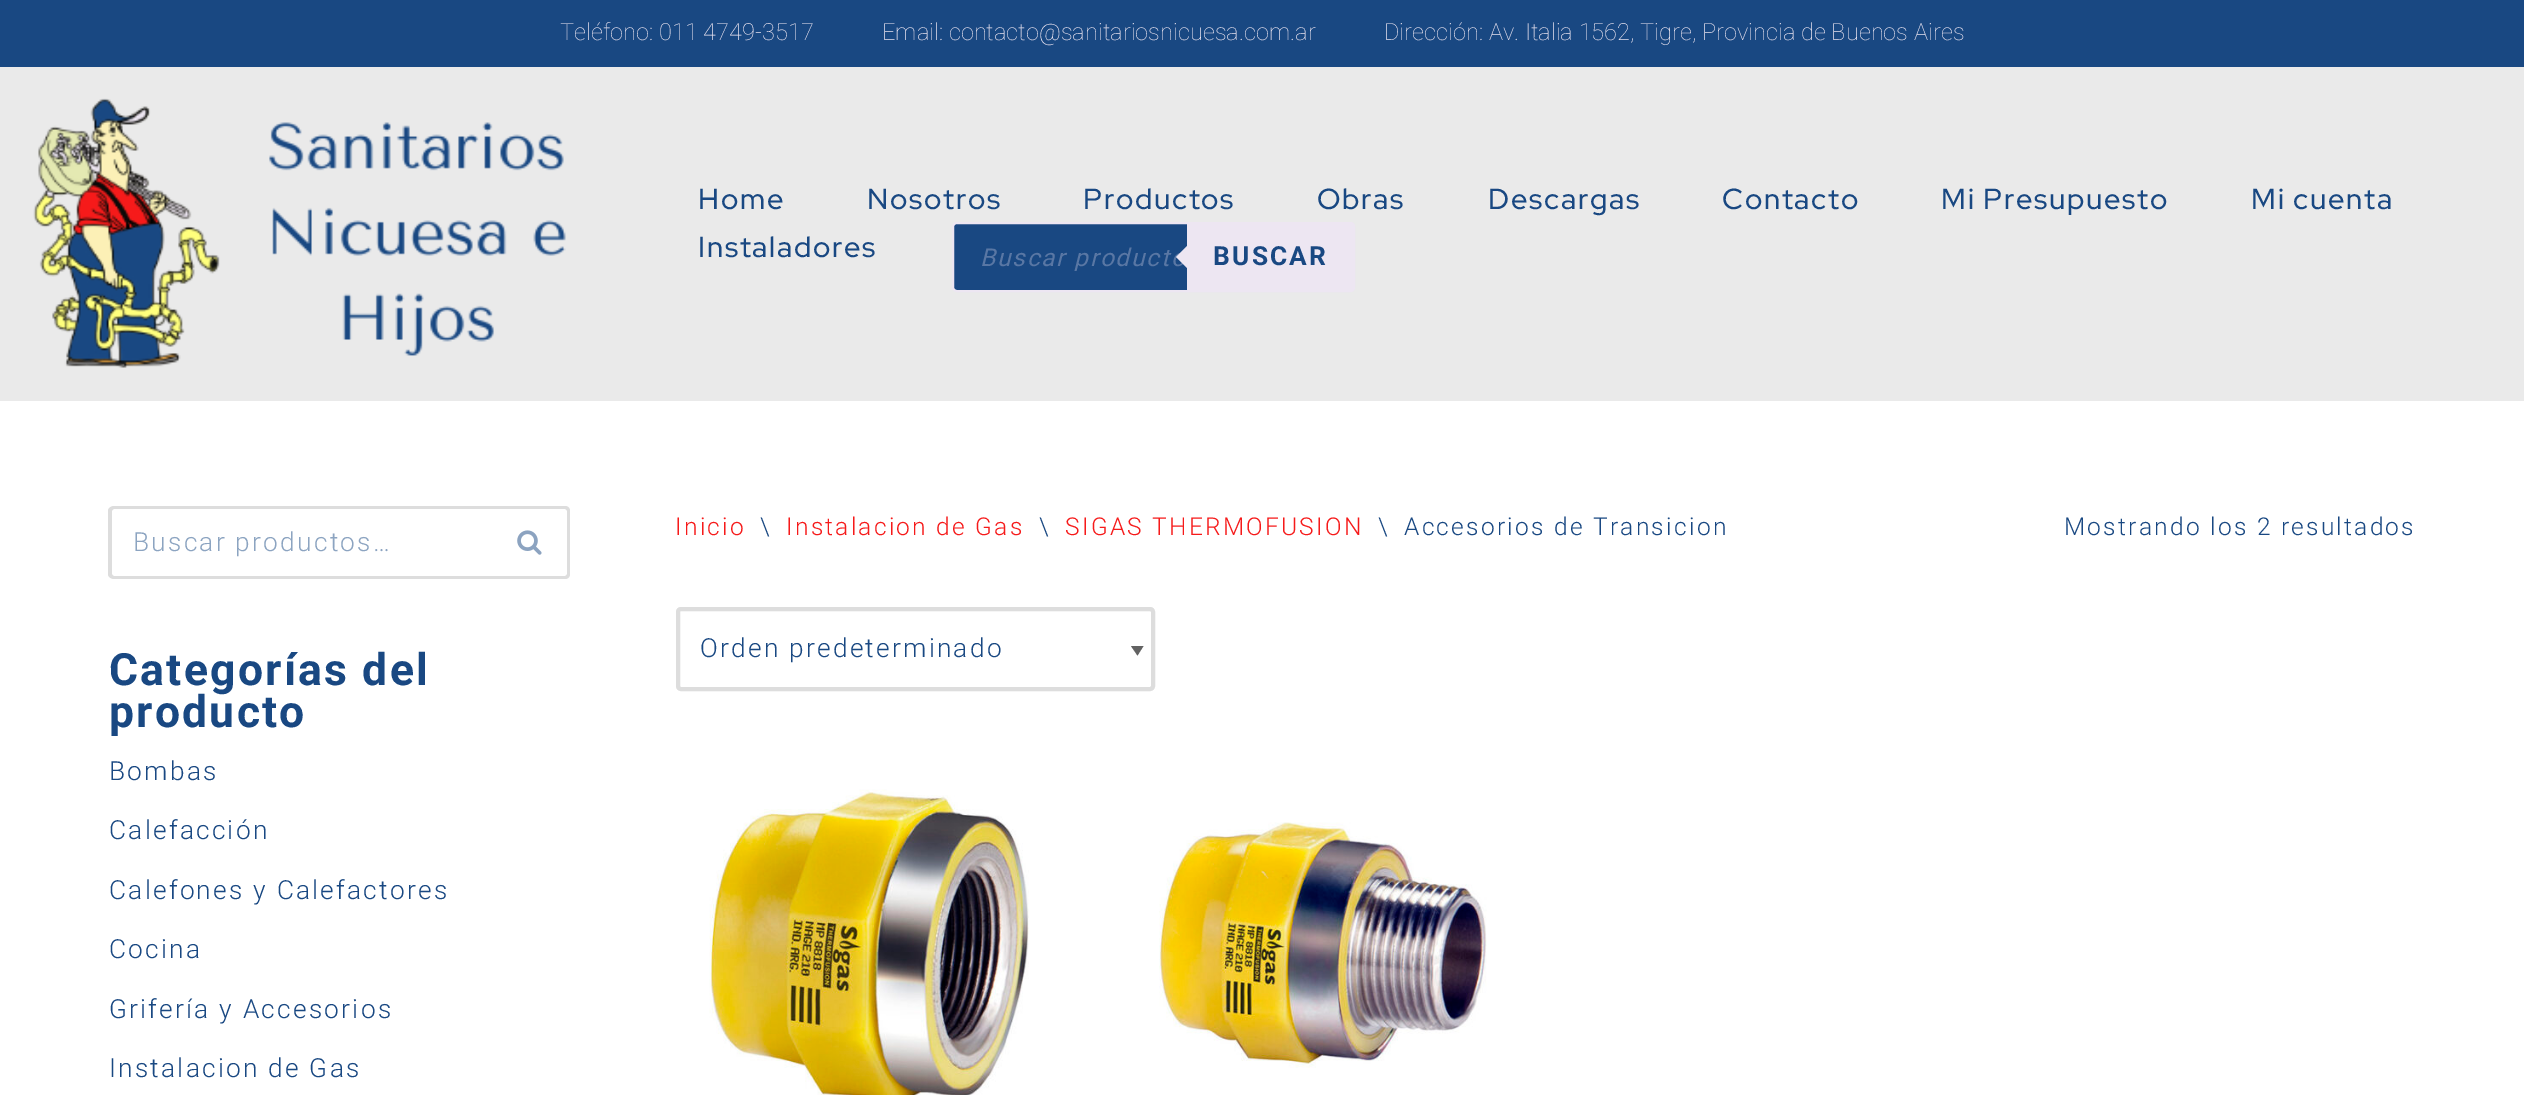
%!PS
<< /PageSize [2524 1095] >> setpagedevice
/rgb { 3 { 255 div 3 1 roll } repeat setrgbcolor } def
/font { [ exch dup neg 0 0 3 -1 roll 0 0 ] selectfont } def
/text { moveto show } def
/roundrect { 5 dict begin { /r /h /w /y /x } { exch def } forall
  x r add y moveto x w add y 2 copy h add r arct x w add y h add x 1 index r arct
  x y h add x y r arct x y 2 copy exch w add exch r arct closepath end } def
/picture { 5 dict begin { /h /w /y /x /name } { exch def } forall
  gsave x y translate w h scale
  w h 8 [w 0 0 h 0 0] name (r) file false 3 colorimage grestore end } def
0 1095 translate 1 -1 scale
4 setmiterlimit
255 255 255 rgb
0 0 2524 1095 rectfill
25 72 130 rgb
0 0 2524 67 rectfill
234 234 234 rgb
0 67 2524 334 rectfill
(img_01.rgb) 33 98 533 270 picture
25 72 130 rgb
953 223 401 68 4 roundrect gsave fill grestore
237 230 242 rgb
2 setlinewidth
stroke
1187 222 moveto 164 0 rlineto 2 0 4 2 4 4 rcurveto 0 62 rlineto 0 2 -2 4 -4 4 rcurveto -164 0 rlineto closepath fill
221 221 221 rgb
114 506 moveto 378 0 rlineto 0 73 rlineto -378 0 rlineto -3 0 -6 -2 -6 -5 rcurveto 0 -63 rlineto 0 -3 3 -5 6 -5 rcurveto closepath 114 509 moveto 378 0 rlineto 0 67 rlineto -378 0 rlineto -1 0 -2 -1 -2 -2 rcurveto 0 -63 rlineto 0 -1 1 -2 2 -2 rcurveto closepath eofill
492 506 moveto 73 0 rlineto 3 0 5 2 5 5 rcurveto 0 63 rlineto 0 3 -2 5 -5 5 rcurveto -73 0 rlineto closepath 492 509 moveto 73 0 rlineto 1 0 2 1 2 2 rcurveto 0 63 rlineto 0 1 -1 2 -2 2 rcurveto -73 0 rlineto closepath eofill
(img_02.rgb) 517 530 25 25 picture
98 98 98 rgb
1143.5 646 moveto -6 9.5 rlineto -6.5 -9.5 rlineto closepath fill
221 221 221 rgb
4 setlinewidth
678 609 475 80 3 roundrect stroke
(img_03.rgb) 709 789 320 306 picture
(img_04.rgb) 1159 822 328 246 picture
/Roboto-Thin 23.6 font
237 230 242 rgb
(Teléfono: 011 4749-3517) 560 40 text
(Email: contacto@sanitariosnicuesa.com.ar) 882 40 text
(Dirección: Av. Italia 1562, Tigre, Provincia de Buenos Aires) 1384 40 text
/RedHatDisplay-Medium 29 font
25 72 130 rgb
698 209 moveto 1.75 0 (Home) ashow
867 209 moveto 1.75 0 (Nosotros) ashow
1083 209 moveto 1.75 0 (Productos) ashow
1317 209 moveto 1.75 0 (Obras) ashow
1488 209 moveto 1.75 0 (Descargas) ashow
1722 209 moveto 1.75 0 (Contacto) ashow
1941 209 moveto 1.75 0 (Mi Presupuesto) ashow
2251 209 moveto 1.75 0 (Mi cuenta) ashow
698 257 moveto 1.75 0 (Instaladores) ashow
/Roboto-Italic 24.5 font
89 119 164 rgb
980 266 moveto 1.75 0 (Buscar producto) ashow
237 230 242 rgb
1190 243 moveto 0 28 rlineto -14 -14 rlineto closepath fill
/Roboto-Bold 26.25 font
25 72 130 rgb
1213 265 moveto 2.25 0 (BUSCAR) ashow
/Roboto-Light 26.25 font
140 164 193 rgb
133 551 moveto 2.25 0 (Buscar productos…) ashow
/Roboto-Bold 44.5 font
25 72 130 rgb
109 685 moveto 2.25 0 (Categorías del) ashow
109 727 moveto 2.25 0 (producto) ashow
/Roboto-Light 26.25 font
109 780 moveto 2.25 0 (Bombas) ashow
109 839 moveto 2.25 0 (Calefacción) ashow
109 899 moveto 2.25 0 (Calefones y Calefactores) ashow
109 958 moveto 2.25 0 (Cocina) ashow
109 1018 moveto 2.25 0 (Grifería y Accesorios) ashow
109 1077 moveto 2.25 0 (Instalacion de Gas) ashow
/Roboto-Light 24.5 font
246 26 26 rgb
675 535 moveto 2.25 0 (Inicio) ashow
25 72 130 rgb
760 535 moveto 2.25 0 (\\) ashow
246 26 26 rgb
786 535 moveto 2.25 0 (Instalacion de Gas) ashow
25 72 130 rgb
1039 535 moveto 2.25 0 (\\) ashow
246 26 26 rgb
1065 535 moveto 2.25 0 (SIGAS THERMOFUSION) ashow
25 72 130 rgb
1378 535 moveto 2.25 0 (\\) ashow
1404 535 moveto 2.25 0 (Accesorios de Transicion) ashow
2064 535 moveto 2.25 0 (Mostrando los 2 resultados) ashow
/Roboto-Light 26.25 font
700 657 moveto 2.25 0 (Orden predeterminado) ashow
showpage
